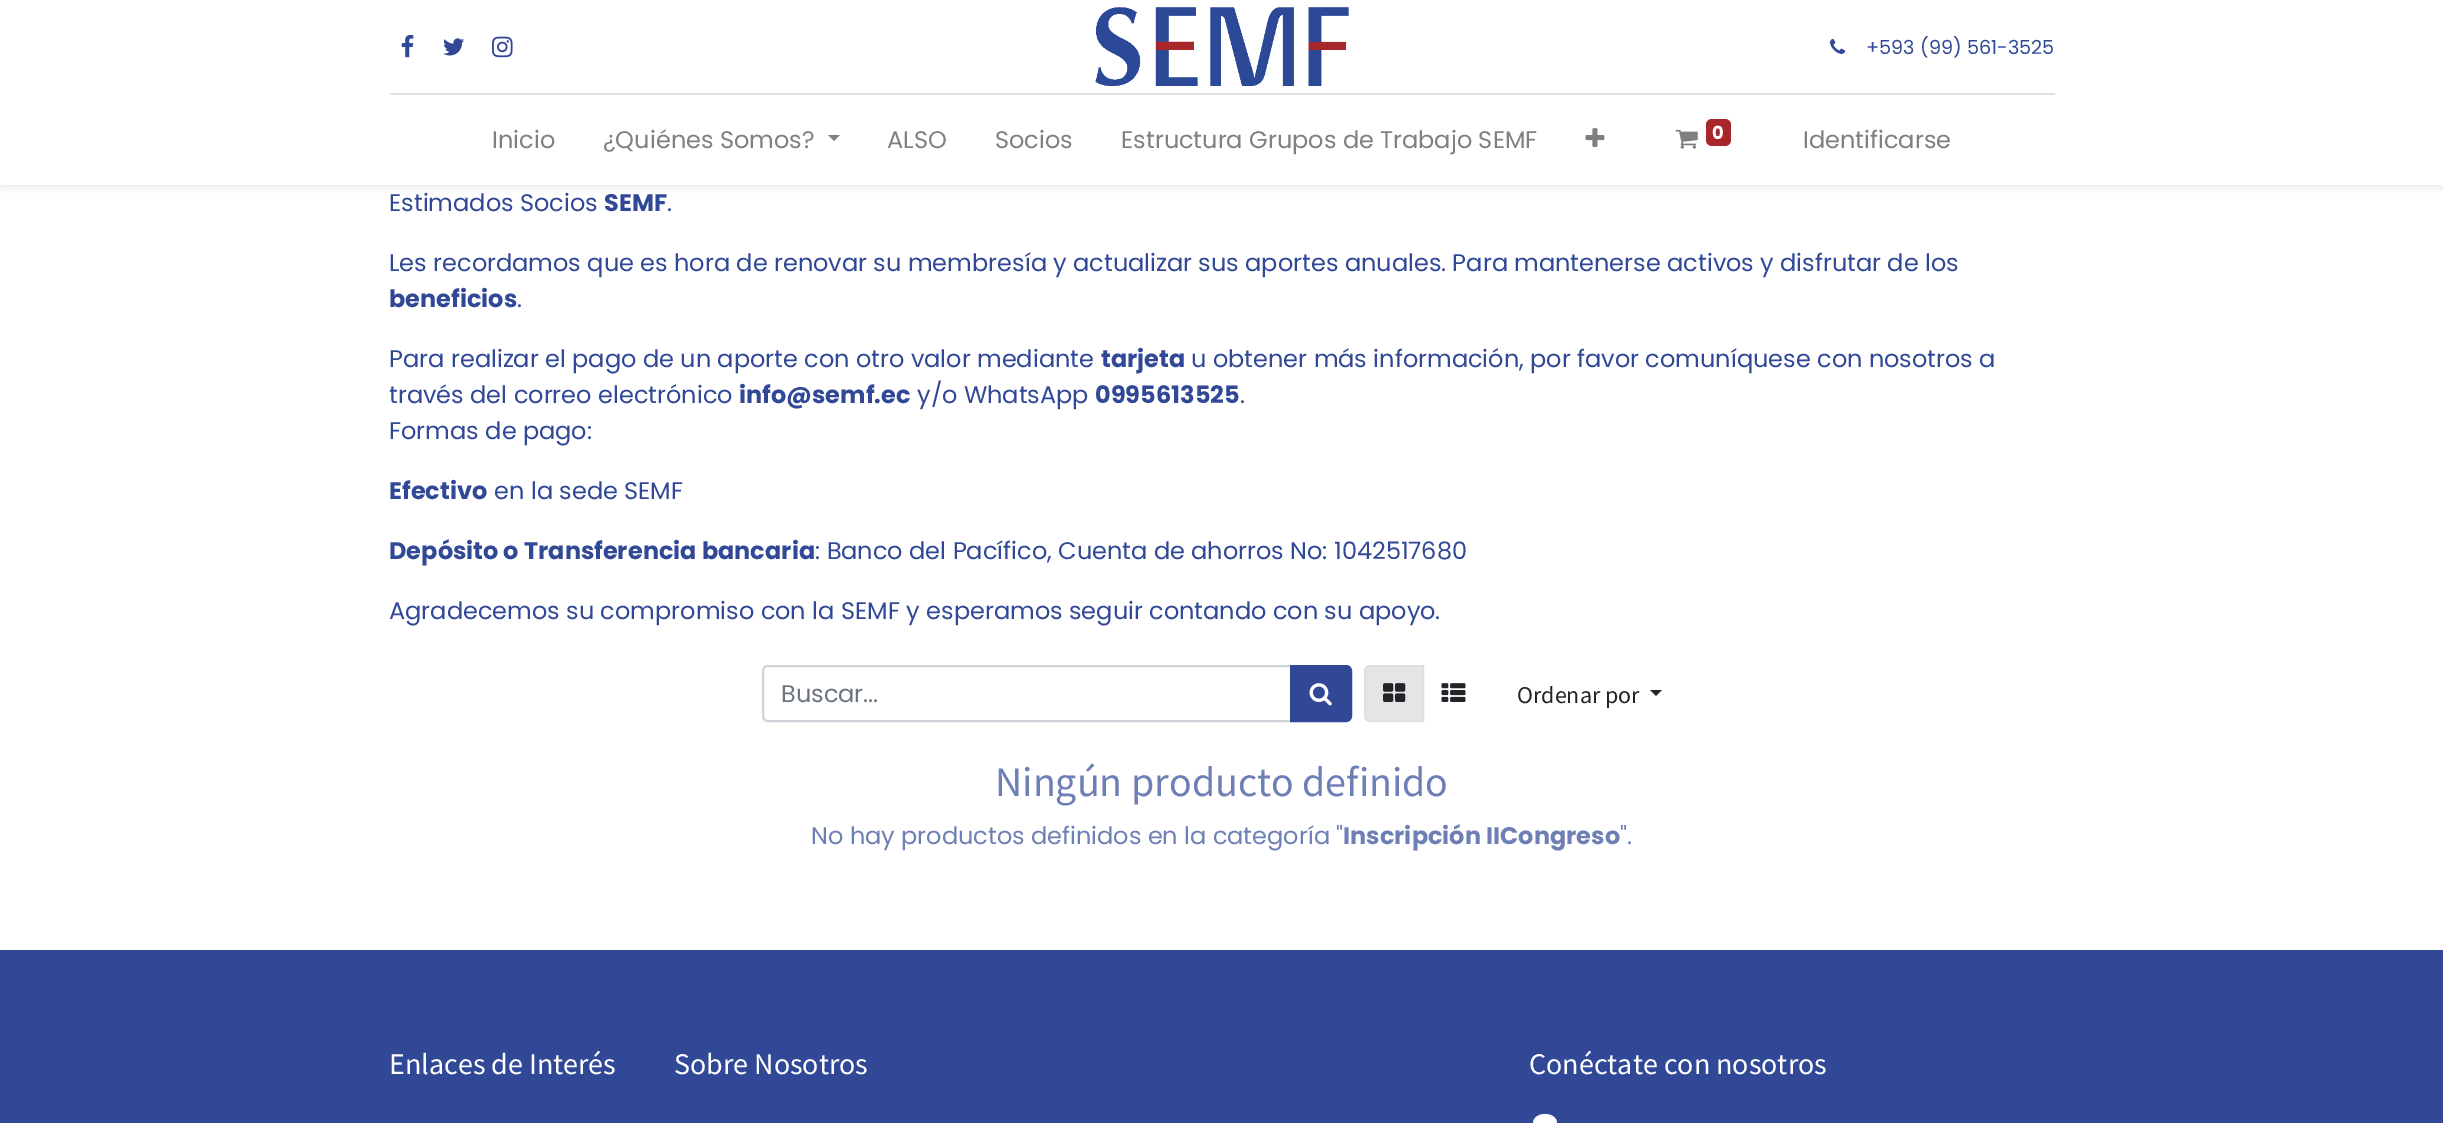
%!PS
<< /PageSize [2443 1123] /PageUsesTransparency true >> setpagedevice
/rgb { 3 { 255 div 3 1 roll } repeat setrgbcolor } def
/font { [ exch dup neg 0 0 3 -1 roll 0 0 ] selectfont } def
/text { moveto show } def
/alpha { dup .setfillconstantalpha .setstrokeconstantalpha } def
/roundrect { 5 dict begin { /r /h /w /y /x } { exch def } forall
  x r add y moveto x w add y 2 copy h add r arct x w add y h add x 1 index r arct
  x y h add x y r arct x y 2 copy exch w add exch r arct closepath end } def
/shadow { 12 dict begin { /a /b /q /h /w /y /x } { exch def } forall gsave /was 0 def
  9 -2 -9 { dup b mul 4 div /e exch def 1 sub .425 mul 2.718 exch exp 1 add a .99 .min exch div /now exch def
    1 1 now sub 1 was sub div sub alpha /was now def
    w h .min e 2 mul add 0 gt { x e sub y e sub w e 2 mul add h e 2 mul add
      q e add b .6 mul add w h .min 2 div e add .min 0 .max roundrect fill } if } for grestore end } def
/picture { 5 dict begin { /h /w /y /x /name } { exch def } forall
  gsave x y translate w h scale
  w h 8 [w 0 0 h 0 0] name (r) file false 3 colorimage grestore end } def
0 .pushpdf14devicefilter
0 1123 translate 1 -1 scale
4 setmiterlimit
255 255 255 rgb
0 0 2443 1123 rectfill
0 0 0 rgb
0 3 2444 185 0 3 0.07 shadow
255 255 255 rgb
0 0 2443 185 rectfill
(img_01.rgb) 401 34 13 24 picture
(img_02.rgb) 443 38 21 18 picture
(img_03.rgb) 492 36 21 22 picture
(img_04.rgb) 1095 7 254 79 picture
(img_05.rgb) 1830 38 16 16 picture
222 226 230 rgb
390 93 1665 2 rectfill
128 128 128 rgb
828 135 moveto 12 0 rlineto -6 6 rlineto closepath fill
(img_06.rgb) 1585 128 20 19 picture
(img_07.rgb) 1675 129 23 20 picture
167 39 42 rgb
1706 119 25 27 6 roundrect fill
206 212 218 rgb
2 setlinewidth
768 666 moveto 523 0 rlineto 0 55 rlineto -523 0 rlineto -3 0 -5 -2 -5 -5 rcurveto 0 -45 rlineto 0 -3 2 -5 5 -5 rcurveto closepath stroke
48 72 150 rgb
1291 666 moveto 55 0 rlineto 3 0 5 2 5 5 rcurveto 0 45 rlineto 0 3 -2 5 -5 5 rcurveto -55 0 rlineto closepath gsave fill grestore
stroke
(img_08.rgb) 1309 683 23 23 picture
230 229 229 rgb
1370 666 moveto 53 0 rlineto 0 55 rlineto -53 0 rlineto -3 0 -5 -2 -5 -5 rcurveto 0 -45 rlineto 0 -3 2 -5 5 -5 rcurveto closepath gsave fill grestore
223 223 223 rgb
stroke
(img_09.rgb) 1383 683 23 19 picture
(img_10.rgb) 1441 683 25 19 picture
33 37 41 rgb
1650 690 moveto 12 0 rlineto -6 6 rlineto closepath fill
48 72 150 rgb
0 950 2443 173 rectfill
(img_11.rgb) 1533 1113 24 10 picture
/Poppins-Regular 19.25 font
(+593 \(99\) 561-3525) 1866 54 text
/Poppins-Regular 24 font
128 128 128 rgb
(Inicio) 492 148 text
(¿Quiénes Somos?) 603 148 text
(ALSO) 887 148 text
(Socios) 995 148 text
(Estructura Grupos de Trabajo SEMF) 1121 148 text
/Poppins-Bold 18 font
255 255 255 rgb
(0) 1712 139 text
/Poppins-Regular 24 font
128 128 128 rgb
(Identificarse) 1803 148 text
48 72 150 rgb
(Estimados Socios) 389 211 text
/Poppins-Bold 24 font
(SEMF) 604 211 text
/Poppins-Regular 24 font
(.) 667 211 text
(Les recordamos que es hora de renovar su membresía y actualizar sus aportes anuales. Para mantenerse activos y disfrutar de los) 389 271 text
/Poppins-Bold 24 font
(beneficios) 389 307 text
/Poppins-Regular 24 font
(.) 517 307 text
(Para realizar el pago de un aporte con otro valor mediante) 389 367 text
/Poppins-Bold 24 font
(tarjeta) 1101 367 text
/Poppins-Regular 24 font
(u obtener más información, por favor comuníquese con nosotros a) 1191 367 text
(través del correo electrónico) 389 403 text
/Poppins-Bold 24 font
(info@semf.ec) 739 403 text
/Poppins-Regular 24 font
(y/o WhatsApp) 917 403 text
/Poppins-Bold 24 font
(0995613525) 1095 403 text
/Poppins-Regular 24 font
(.) 1240 403 text
(Formas de pago:) 389 439 text
/Poppins-Bold 24 font
(Efectivo) 389 499 text
/Poppins-Regular 24 font
(en la sede SEMF) 494 499 text
/Poppins-Bold 24 font
(Depósito o Transferencia bancaria) 389 559 text
/Poppins-Regular 24 font
(: Banco del Pacífico, Cuenta de ahorros No: 1042517680) 815 559 text
(Agradecemos su compromiso con la SEMF y esperamos seguir contando con su apoyo.) 389 619 text
108 117 125 rgb
(Buscar...) 781 702 text
/SourceSansPro-Regular 24 font
33 37 41 rgb
(Ordenar por) 1517 703 text
/SourceSansPro-Regular 42 font
110 127 182 rgb
(Ningún producto definido) 995 796 text
/Poppins-Regular 24 font
(No hay productos definidos en la categoría ") 811 844 text
/Poppins-Bold 24 font
(Inscripción IICongreso) 1343 844 text
/Poppins-Regular 24 font
(".) 1620 844 text
/SourceSansPro-Regular 30 font
255 255 255 rgb
(Enlaces de Interés) 389 1074 text
(Sobre Nosotros) 674 1074 text
(Conéctate con nosotros) 1529 1074 text
.poppdf14devicefilter showpage
